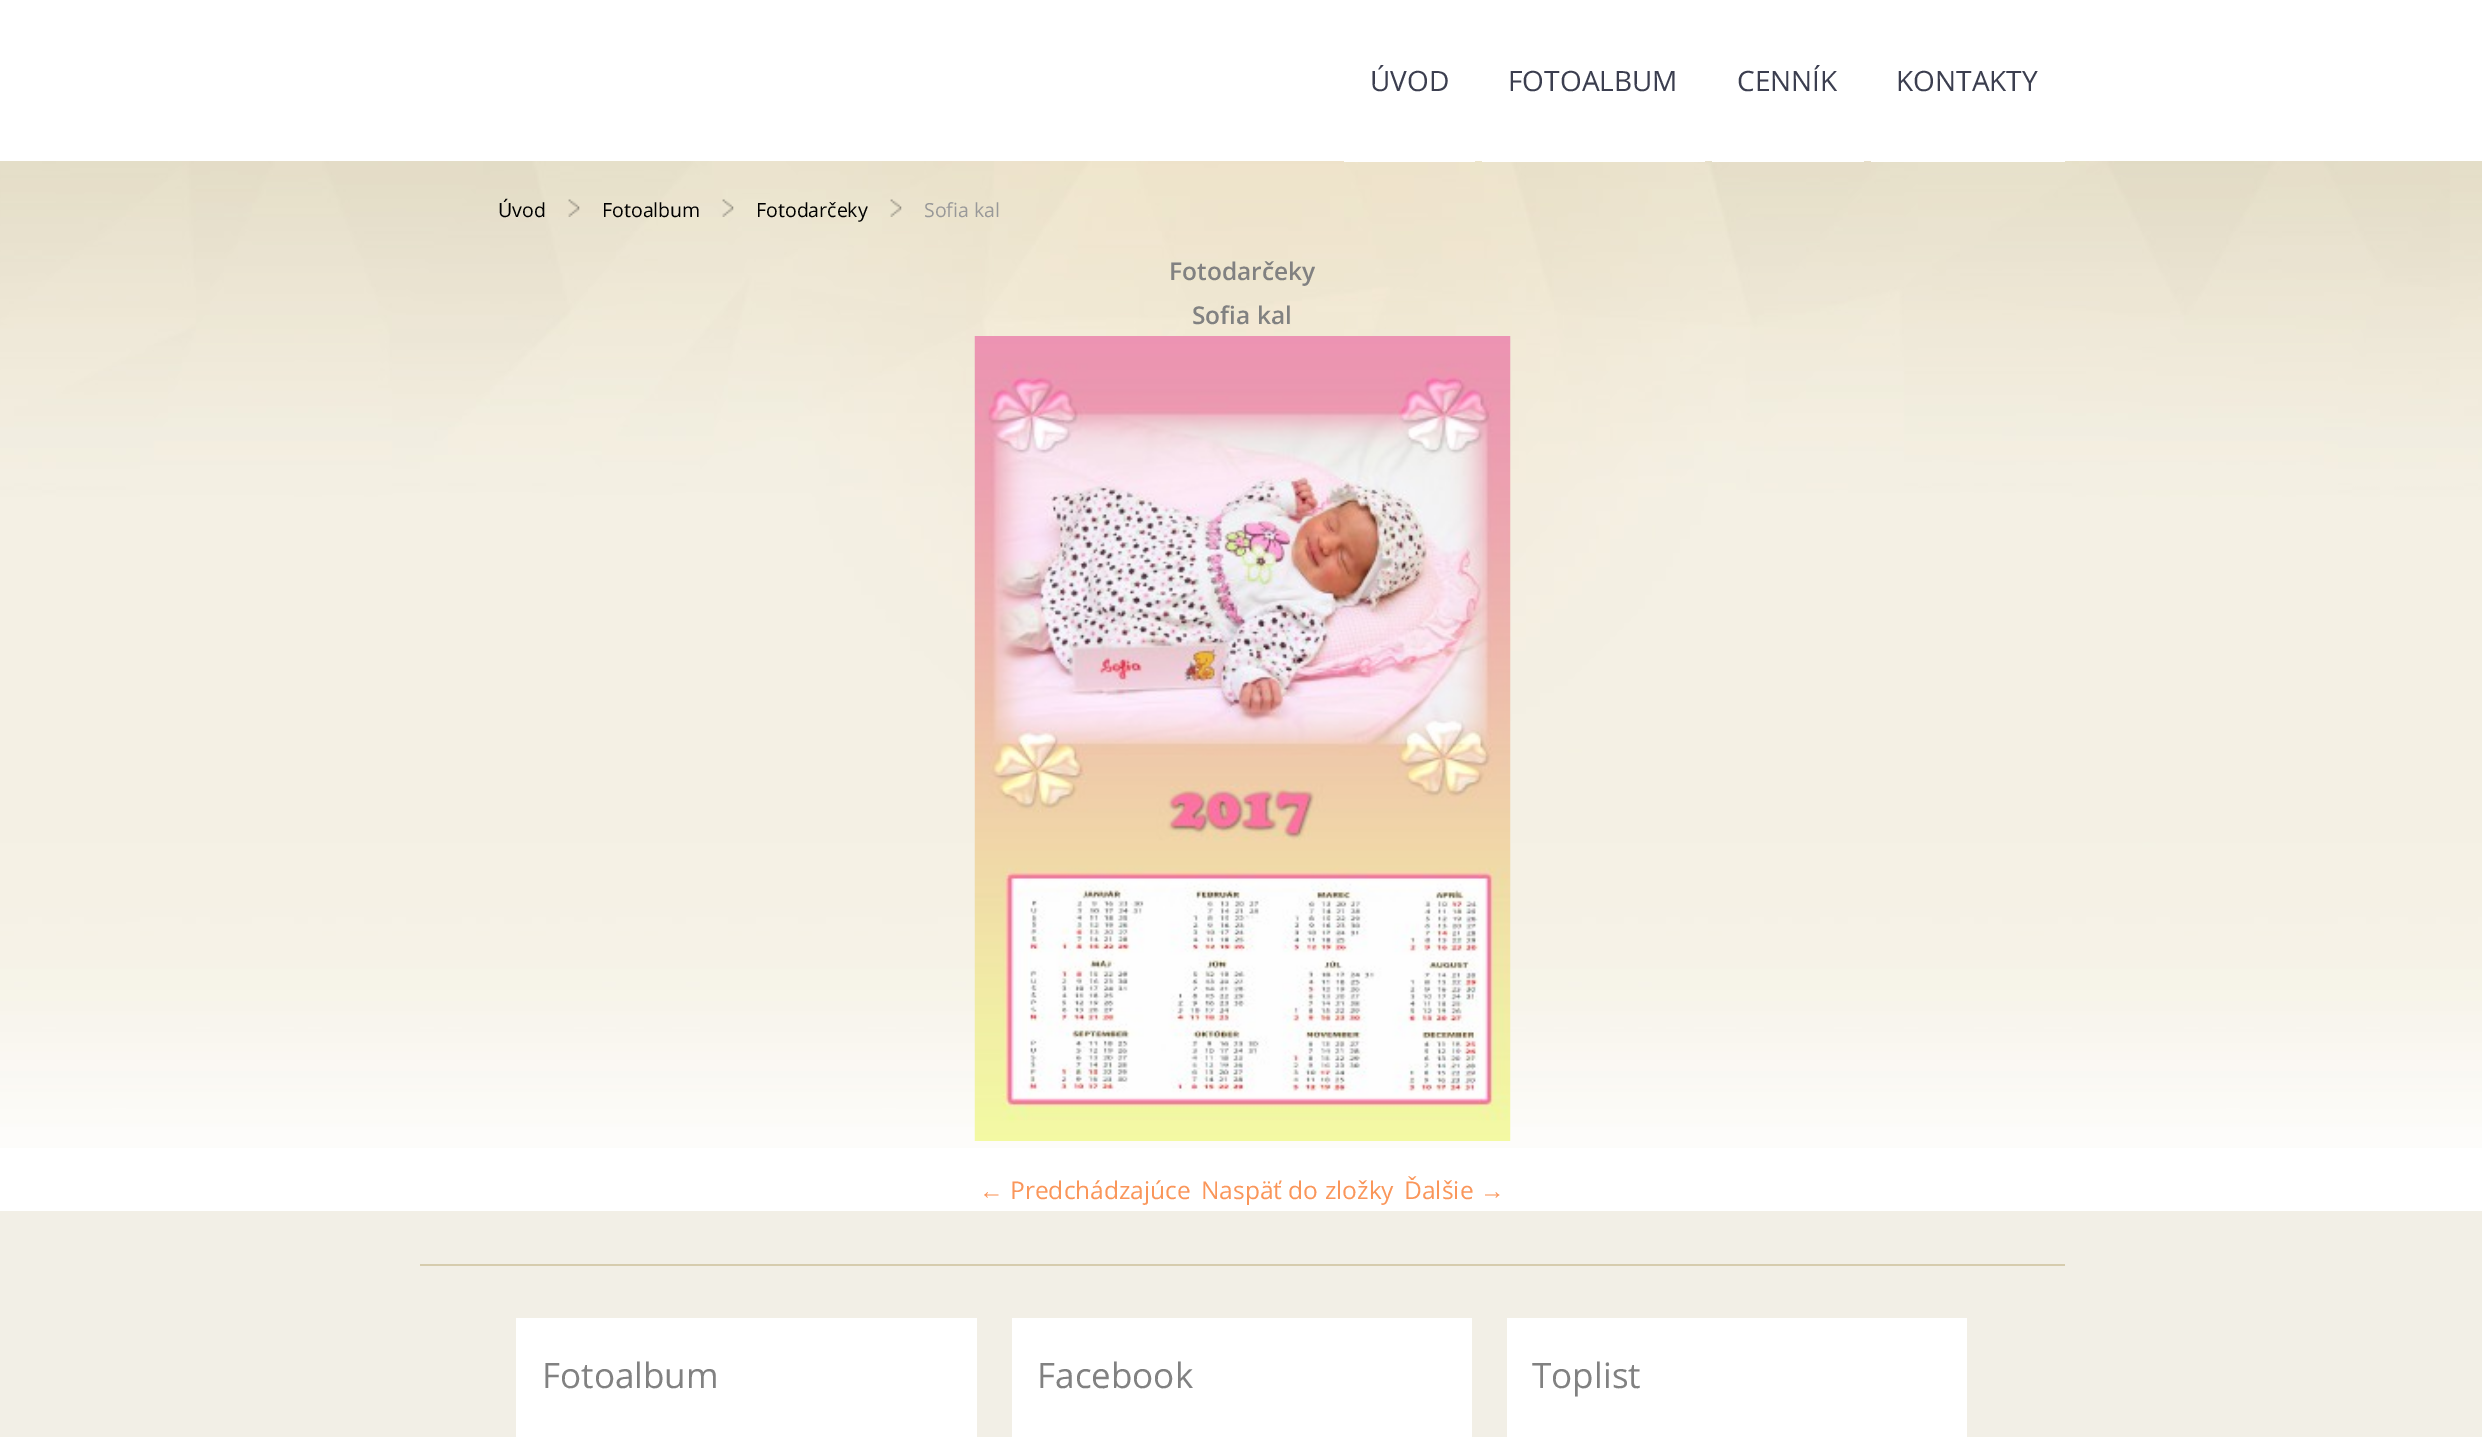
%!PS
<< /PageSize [2482 1437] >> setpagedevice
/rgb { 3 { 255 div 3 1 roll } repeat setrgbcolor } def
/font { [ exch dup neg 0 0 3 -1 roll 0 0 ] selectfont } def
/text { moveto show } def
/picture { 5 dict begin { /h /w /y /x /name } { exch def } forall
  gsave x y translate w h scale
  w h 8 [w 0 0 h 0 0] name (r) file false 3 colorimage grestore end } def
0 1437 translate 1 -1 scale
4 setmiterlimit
242 239 230 rgb
0 0 2482 1437 rectfill
255 255 255 rgb
0 0 2482 161 rectfill
(img_01.rgb) 0 161 2482 987 picture
1344 161 131 1 rectfill
1482 161 223 1 rectfill
1712 161 152 1 rectfill
1871 161 194 1 rectfill
0 1148 2482 63 rectfill
(img_02.rgb) 568 199 12 18 picture
(img_03.rgb) 722 199 12 18 picture
(img_04.rgb) 890 199 12 18 picture
(img_05.rgb) 974 336 537 805 picture
214 204 174 rgb
420 1264 1645 2 rectfill
255 255 255 rgb
516 1318 461 119 rectfill
1012 1318 460 119 rectfill
1507 1318 460 119 rectfill
/OpenSans-Regular 28 font
59 62 79 rgb
(ÚVOD) 1370 91 text
(FOTOALBUM) 1508 91 text
(CENNÍK) 1737 91 text
(KONTAKTY) 1896 91 text
/OpenSans-Regular 19.5 font
0 0 0 rgb
(Úvod) 498 217 text
(Fotoalbum) 602 217 text
(Fotodarčeky) 756 217 text
153 153 153 rgb
(Sofia kal) 924 217 text
/OpenSans-SemiBold 24.5 font
129 129 129 rgb
(Fotodarčeky) 1169 280 text
(Sofia kal) 1192 324 text
/LiberationSans-Regular 24.5 font
250 150 90 rgb
(←) 979 1199 text
/OpenSans-Regular 24.5 font
(Predchádzajúce) 1010 1199 text
(Naspäť do zložky) 1201 1199 text
(Ďalšie) 1404 1199 text
/LiberationSans-Regular 24.5 font
(→) 1480 1199 text
/OpenSans-Regular 35 font
129 129 129 rgb
(Fotoalbum) 542 1388 text
(Facebook) 1037 1388 text
(Toplist) 1532 1388 text
showpage
